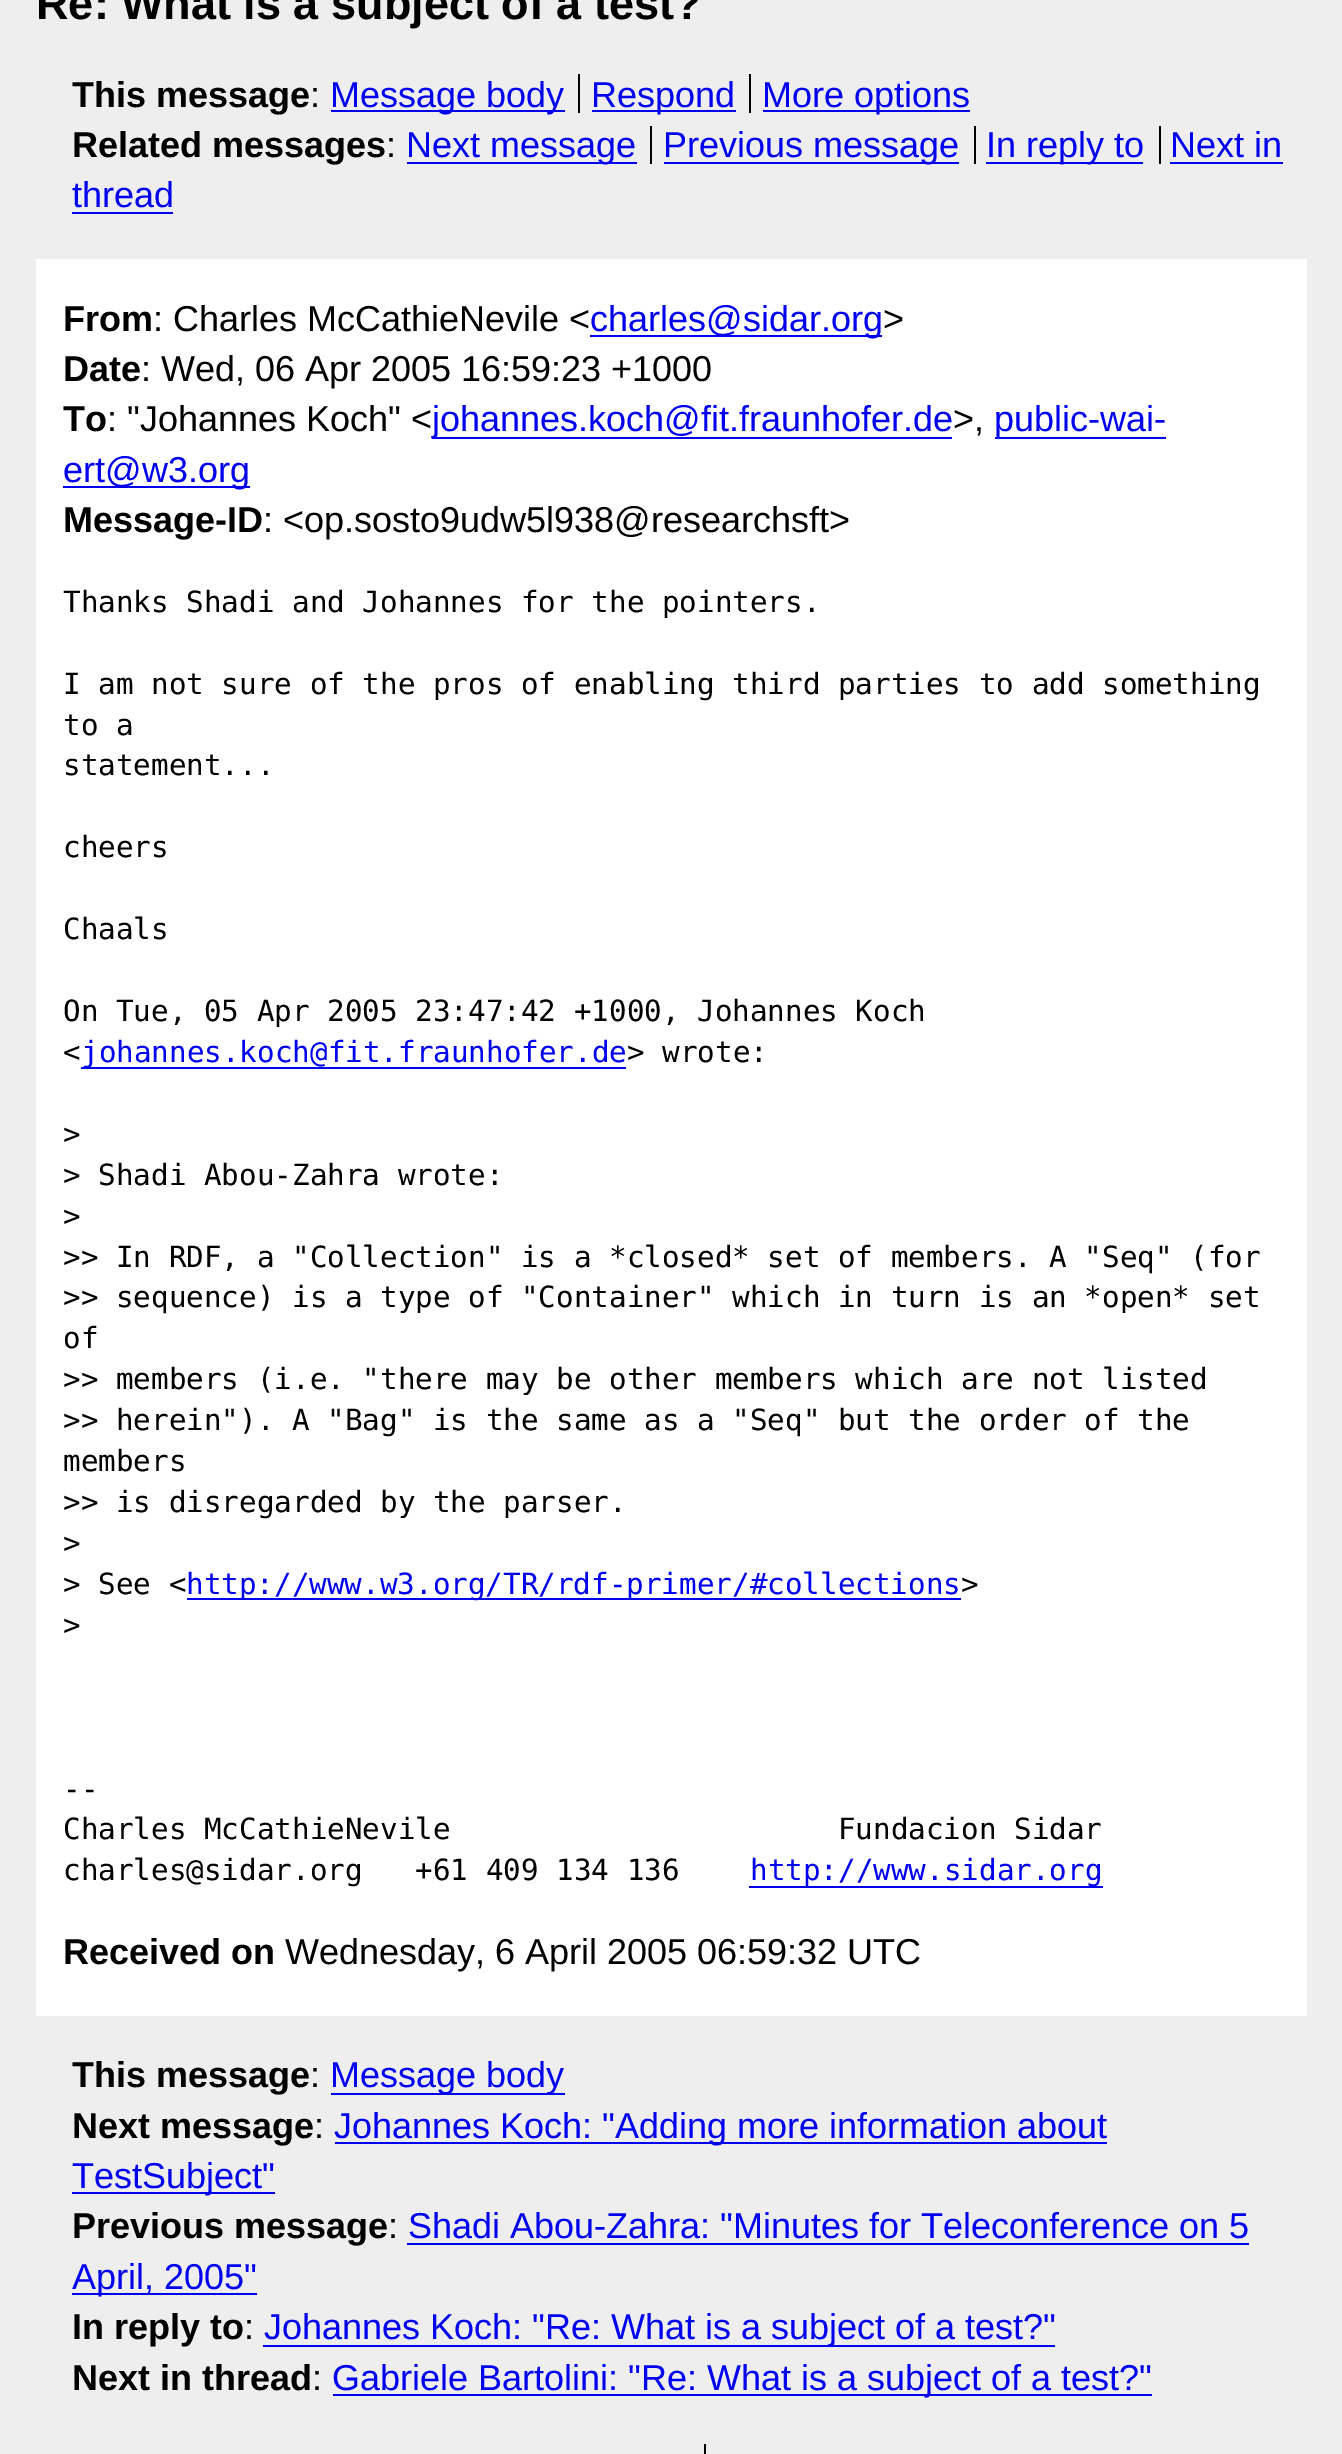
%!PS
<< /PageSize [1342 2454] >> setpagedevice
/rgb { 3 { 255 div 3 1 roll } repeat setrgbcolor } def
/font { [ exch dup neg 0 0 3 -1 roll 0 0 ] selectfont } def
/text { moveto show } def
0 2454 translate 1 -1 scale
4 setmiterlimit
238 238 238 rgb
0 0 1342 2454 rectfill
0 0 0 rgb
578 74 2 39 rectfill
0 0 238 rgb
331 110 234 2 rectfill
592 110 144 2 rectfill
0 0 0 rgb
749 74 2 39 rectfill
0 0 238 rgb
763 110 207 2 rectfill
407 162 230 2 rectfill
0 0 0 rgb
650 126 2 38 rectfill
0 0 238 rgb
664 162 295 2 rectfill
0 0 0 rgb
974 126 2 38 rectfill
0 0 238 rgb
986 162 157 2 rectfill
0 0 0 rgb
1159 126 2 38 rectfill
0 0 238 rgb
1170 162 113 2 rectfill
72 212 101 2 rectfill
255 255 255 rgb
36 259 1271 1757 rectfill
0 0 238 rgb
590 335 292 2 rectfill
432 437 520 2 rectfill
995 437 171 2 rectfill
63 486 187 2 rectfill
81 1067 545 2 rectfill
187 1598 774 2 rectfill
749 1886 354 2 rectfill
331 2093 234 2 rectfill
335 2142 772 2 rectfill
72 2192 203 2 rectfill
407 2243 842 2 rectfill
72 2293 185 2 rectfill
263 2345 792 2 rectfill
333 2394 819 2 rectfill
0 0 0 rgb
704 2444 2 10 rectfill
/LiberationSans-Bold 45 font
(Re: What is a subject of a test?) 36 19 text
/LiberationSans-Bold 36 font
(This message) 72 107 text
/LiberationSans-Regular 36 font
(:) 310 107 text
0 0 238 rgb
(Message body) 330 107 text
(Respond) 591 107 text
(More options) 762 107 text
/LiberationSans-Bold 36 font
0 0 0 rgb
(Related messages) 72 157 text
/LiberationSans-Regular 36 font
(:) 386 157 text
0 0 238 rgb
(Next message) 406 157 text
(Previous message) 663 157 text
(In reply to) 986 157 text
(Next in) 1170 157 text
(thread) 72 207 text
/LiberationSans-Bold 36 font
0 0 0 rgb
(From) 63 331 text
/LiberationSans-Regular 36 font
(: Charles McCathieNevile <) 153 331 text
0 0 238 rgb
(charles@sidar.org) 590 331 text
0 0 0 rgb
(>) 883 331 text
/LiberationSans-Bold 36 font
(Date) 63 381 text
/LiberationSans-Regular 36 font
(: Wed, 06 Apr 2005 16:59:23 +1000) 141 381 text
/LiberationSans-Bold 36 font
(To) 63 431 text
/LiberationSans-Regular 36 font
(: "Johannes Koch" <) 107 431 text
0 0 238 rgb
(johannes.koch@fit.fraunhofer.de) 432 431 text
0 0 0 rgb
(>,) 953 431 text
0 0 238 rgb
(public-wai-) 994 431 text
(ert@w3.org) 63 482 text
/LiberationSans-Bold 36 font
0 0 0 rgb
(Message-ID) 63 532 text
/LiberationSans-Regular 36 font
(: <op.sosto9udw5l938@researchsft>) 263 532 text
/DejaVuSansMono-Regular 29.25 font
(Thanks Shadi and Johannes for the pointers.) 63 612 text
(I am not sure of the pros of enabling third parties to add something) 63 694 text
(to a) 63 735 text
(statement...) 63 775 text
(cheers) 63 857 text
(Chaals) 63 939 text
(On Tue, 05 Apr 2005 23:47:42 +1000, Johannes Koch) 63 1021 text
(<) 63 1062 text
0 0 238 rgb
(johannes.koch@fit.fraunhofer.de) 81 1062 text
0 0 0 rgb
(> wrote:) 627 1062 text
(>) 63 1144 text
(> Shadi Abou-Zahra wrote:) 63 1185 text
(>) 63 1226 text
(>> In RDF, a "Collection" is a *closed* set of members. A "Seq" \(for) 63 1267 text
(>> sequence\) is a type of "Container" which in turn is an *open* set) 63 1307 text
(of) 63 1348 text
(>> members \(i.e. "there may be other members which are not listed) 63 1389 text
(>> herein"\). A "Bag" is the same as a "Seq" but the order of the) 63 1430 text
(members) 63 1471 text
(>> is disregarded by the parser.) 63 1512 text
(>) 63 1553 text
(> See <) 63 1594 text
0 0 238 rgb
(http://www.w3.org/TR/rdf-primer/#collections) 186 1594 text
0 0 0 rgb
(>) 961 1594 text
(>) 63 1635 text
(--) 63 1799 text
(Charles McCathieNevile                      Fundacion Sidar) 63 1839 text
(charles@sidar.org   +61 409 134 136) 63 1880 text
0 0 238 rgb
(http://www.sidar.org) 750 1880 text
/LiberationSans-Bold 36 font
0 0 0 rgb
(Received on) 63 1964 text
/LiberationSans-Regular 36 font
(Wednesday, 6 April 2005 06:59:32 UTC) 285 1964 text
/LiberationSans-Bold 36 font
(This message) 72 2087 text
/LiberationSans-Regular 36 font
(:) 310 2087 text
0 0 238 rgb
(Message body) 330 2087 text
/LiberationSans-Bold 36 font
0 0 0 rgb
(Next message) 72 2138 text
/LiberationSans-Regular 36 font
(:) 314 2138 text
0 0 238 rgb
(Johannes Koch: "Adding more information about) 334 2138 text
(TestSubject") 72 2188 text
/LiberationSans-Bold 36 font
0 0 0 rgb
(Previous message) 72 2238 text
/LiberationSans-Regular 36 font
(:) 388 2238 text
0 0 238 rgb
(Shadi Abou-Zahra: "Minutes for Teleconference on 5) 408 2238 text
(April, 2005") 72 2289 text
/LiberationSans-Bold 36 font
0 0 0 rgb
(In reply to) 72 2339 text
/LiberationSans-Regular 36 font
(:) 244 2339 text
0 0 238 rgb
(Johannes Koch: "Re: What is a subject of a test?") 264 2339 text
/LiberationSans-Bold 36 font
0 0 0 rgb
(Next in thread) 72 2390 text
/LiberationSans-Regular 36 font
(:) 312 2390 text
0 0 238 rgb
(Gabriele Bartolini: "Re: What is a subject of a test?") 332 2390 text
showpage
